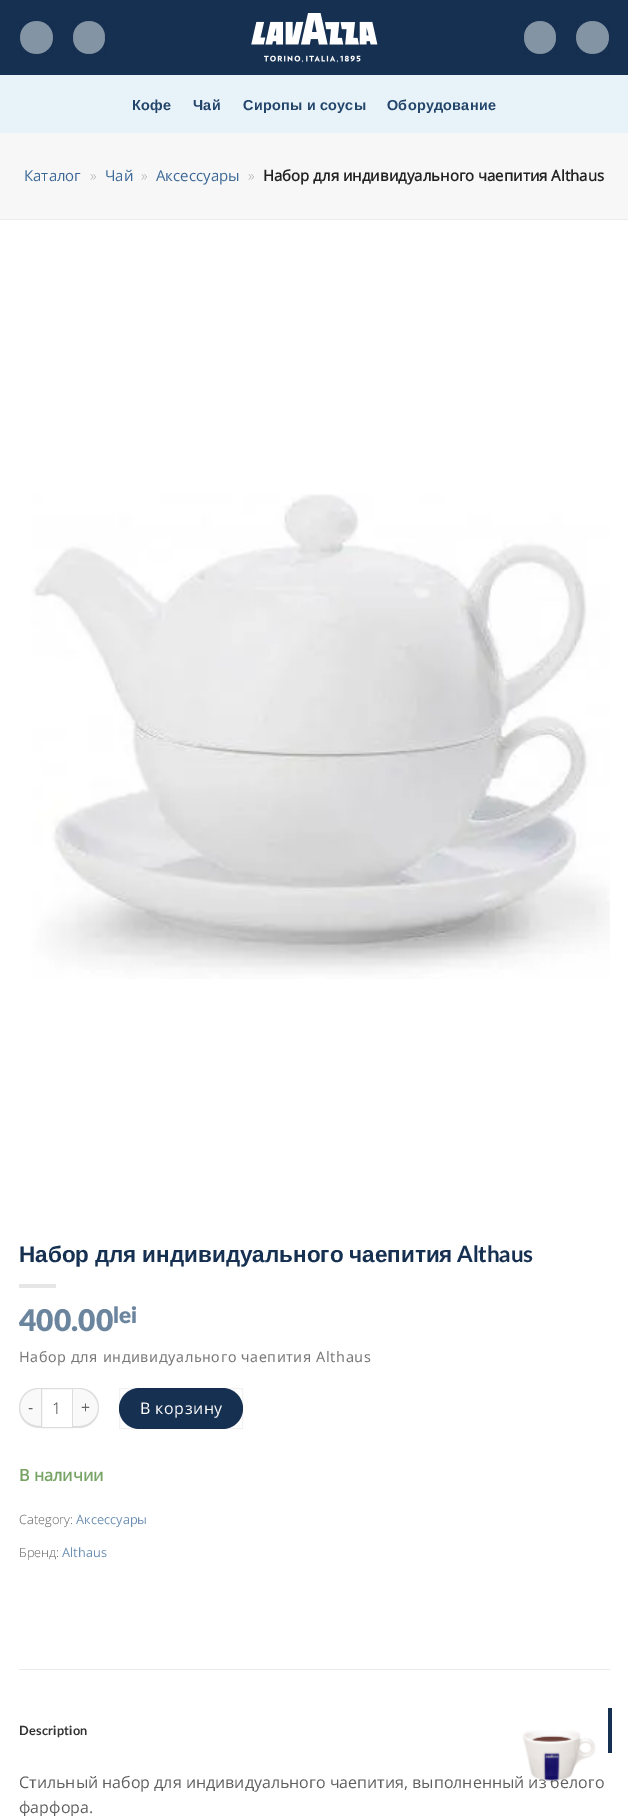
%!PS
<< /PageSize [628 1816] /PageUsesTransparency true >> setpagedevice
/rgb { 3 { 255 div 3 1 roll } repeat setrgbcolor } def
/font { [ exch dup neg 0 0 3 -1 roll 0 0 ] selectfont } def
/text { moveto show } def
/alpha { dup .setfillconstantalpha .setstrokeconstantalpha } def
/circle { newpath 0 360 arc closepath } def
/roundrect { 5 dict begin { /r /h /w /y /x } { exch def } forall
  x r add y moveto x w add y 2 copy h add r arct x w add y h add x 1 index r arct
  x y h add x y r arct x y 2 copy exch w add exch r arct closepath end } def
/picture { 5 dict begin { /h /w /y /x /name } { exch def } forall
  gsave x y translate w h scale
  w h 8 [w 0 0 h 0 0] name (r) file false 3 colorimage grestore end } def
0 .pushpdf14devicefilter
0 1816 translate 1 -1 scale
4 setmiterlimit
255 255 255 rgb
0 0 628 1816 rectfill
22 48 82 rgb
0 0 628 75 rectfill
131 148 165 rgb
36.5 37.5 16.5 circle fill
0.05 alpha
0 0 0 rgb
20.5 21.5 32 32 rectstroke
1 alpha
131 148 165 rgb
73 21 32 33 16 roundrect fill
0.05 alpha
0 0 0 rgb
73.5 21.5 31 32 rectstroke
1 alpha
(img_01.rgb) 251 13 127 50 picture
131 148 165 rgb
524 21 32 33 16 roundrect fill
0.05 alpha
0 0 0 rgb
524.5 21.5 31 32 rectstroke
1 alpha
131 148 165 rgb
592.5 37.5 16.5 circle fill
0.05 alpha
0 0 0 rgb
576.5 21.5 32 32 rectstroke
1 alpha
232 242 249 rgb
0 75 628 58 rectfill
247 247 247 rgb
0 133 628 86 rectfill
236 236 236 rgb
0 219 628 1 rectfill
(img_02.rgb) 31 494 579 485 picture
230 230 230 rgb
19 1284 37 4 rectfill
249 249 249 rgb
39 1388 moveto 2 0 rlineto 0 40 rlineto -2 0 rlineto -11 0 -20 -9 -20 -20 rcurveto 0 -11 9 -20 20 -20 rcurveto closepath fill
221 221 221 rgb
39 1388 moveto 2 0 rlineto 0 40 rlineto -30 0 -28 -40 -2 -40 rcurveto closepath 39 1389 moveto 2 0 rlineto 0 37 rlineto -29 0 -26 -37 -2 -37 rcurveto closepath eofill
41.5 1388.5 31 39 rectstroke
249 249 249 rgb
73 1388 moveto 6 0 rlineto 11 0 20 9 20 20 rcurveto 0 11 -9 20 -20 20 rcurveto -6 0 rlineto closepath fill
221 221 221 rgb
72 1388 moveto 7 0 rlineto 11 0 20 8 20 20 rcurveto 0 11 -9 20 -20 20 rcurveto -7 0 rlineto closepath 72 1389 moveto 7 0 rlineto 10 0 19 8 19 19 rcurveto 0 10 -9 18 -19 18 rcurveto -7 0 rlineto closepath eofill
22 48 82 rgb
119 1388 124 41 20.5 roundrect fill
0.05 alpha
0 0 0 rgb
119.5 1388.5 123 40 rectstroke
1 alpha
236 236 236 rgb
19 1669 591 1 rectfill
22 48 82 rgb
608 1708 4 45 rectfill
/LiberationSans-Bold 14.4 font
36 69 106 rgb
132 110 moveto 0.25 0 (Кофе) ashow
193 110 moveto 0.25 0 (Чай) ashow
243 110 moveto 0.25 0 (Сиропы и соусы) ashow
387 110 moveto 0.25 0 (Оборудование) ashow
/OpenSans-Regular 15 font
58 103 149 rgb
(Каталог) 24 181 text
/OpenSans-Light 15 font
172 172 172 rgb
(») 90 181 text
/OpenSans-Regular 15 font
58 103 149 rgb
(Чай) 105 181 text
/OpenSans-Light 15 font
172 172 172 rgb
(») 141 181 text
/OpenSans-Regular 15 font
58 103 149 rgb
(Аксессуары) 156 181 text
/OpenSans-Light 15 font
172 172 172 rgb
(») 248 181 text
/OpenSans-Bold 15 font
34 34 34 rgb
(Набор для индивидуального чаепития Althaus) 263 181 text
/LiberationSans-Bold 22.5 font
22 48 82 rgb
19 1262 moveto -0.5 0 32 (Набор для индивидуального чаепития) widthshow
/Lato-Bold 22.5 font
(Althaus) 457 1262 text
/Lato-Black 30 font
108 133 159 rgb
(400.00) 19 1331 text
/Lato-Black 22.5 font
(lei) 113 1323 text
/NotoSans-Regular 14.4 font
120 120 120 rgb
19 1362 moveto 0.6 0 (Набор для индивидуального чаепития Althaus) ashow
/OpenSans-Regular 16 font
102 102 102 rgb
(-) 28 1413 text
/OpenSans-Light 16 font
51 51 51 rgb
(1) 52 1414 text
/OpenSans-Regular 16 font
102 102 102 rgb
(+) 81 1413 text
255 255 255 rgb
140 1414 moveto 0.5 0 (В корзину) ashow
/OpenSans-Bold 16.25 font
119 164 100 rgb
(В наличии) 19 1481 text
/OpenSans-Light 12.75 font
94 94 94 rgb
(Category:) 19 1524 text
/OpenSans-Regular 12.75 font
108 143 179 rgb
(Аксессуары) 76 1524 text
/OpenSans-Light 12.75 font
94 94 94 rgb
(Бренд:) 19 1557 text
/OpenSans-Regular 12.75 font
108 143 179 rgb
(Althaus) 62 1557 text
/Lato-Bold 12.75 font
51 51 51 rgb
19 1735 moveto 0.25 0 (Description) ashow
/OpenSans-Regular 16 font
94 94 94 rgb
(Стильный набор для индивидуального чаепития, выполненный из белого) 19 1788 text
(фарфора.) 19 1813 text
(img_03.rgb) 522 1730 74 51 picture
.poppdf14devicefilter showpage
